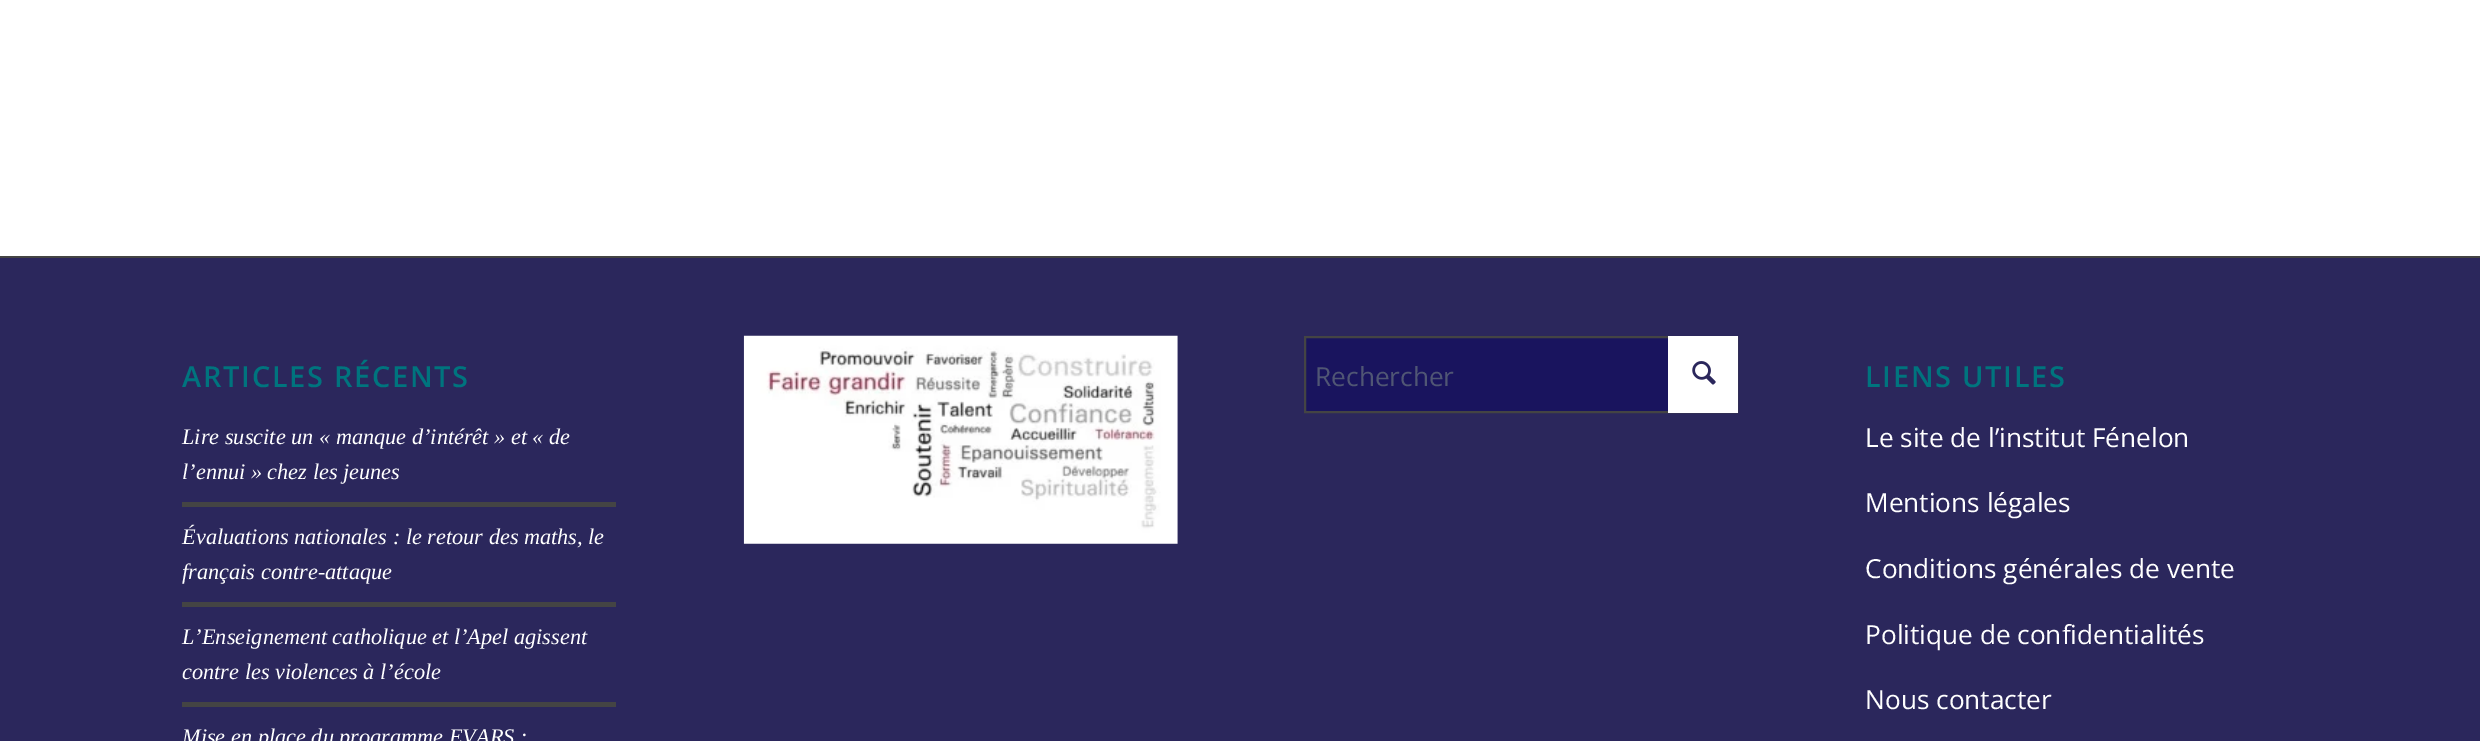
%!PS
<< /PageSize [2480 741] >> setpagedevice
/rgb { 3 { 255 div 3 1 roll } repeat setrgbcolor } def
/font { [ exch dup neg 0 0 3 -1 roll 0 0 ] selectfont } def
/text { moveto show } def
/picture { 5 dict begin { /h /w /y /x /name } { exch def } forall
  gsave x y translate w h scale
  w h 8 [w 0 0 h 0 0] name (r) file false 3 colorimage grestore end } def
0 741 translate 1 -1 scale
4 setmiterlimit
255 255 255 rgb
0 0 2480 741 rectfill
43 39 92 rgb
0 258 2480 483 rectfill
68 68 68 rgb
0 256 2480 2 rectfill
182 502 434 5 rectfill
182 602 434 5 rectfill
182 702 434 5 rectfill
(img_01.rgb) 743 335 435 209 picture
25 20 94 rgb
1306 338 362 73 rectfill
68 68 68 rgb
2 setlinewidth
1305 337 432 75 rectstroke
255 255 255 rgb
1668 336 70 77 rectfill
(img_02.rgb) 1692 361 24 24 picture
/OpenSans-SemiBold 28.9 font
0 116 126 rgb
182 387 moveto 1.75 0 (ARTICLES RÉCENTS) ashow
/LiberationSerif-Italic 22.3 font
255 255 255 rgb
(Lire suscite un « manque d’intérêt » et « de) 182 444 text
(l’ennui » chez les jeunes) 182 479 text
(Évaluations nationales : le retour des maths, le) 182 544 text
(français contre-attaque) 182 579 text
(L’Enseignement catholique et l’Apel agissent) 182 644 text
(contre les violences à l’école) 182 679 text
(Mise en place du programme EVARS :) 182 744 text
/OpenSans-Regular 26.25 font
80 86 116 rgb
(Rechercher) 1315 386 text
/OpenSans-SemiBold 28.9 font
0 116 126 rgb
1865 387 moveto 1.75 0 (LIENS UTILES) ashow
/OpenSans-Regular 26.25 font
255 255 255 rgb
(Le site de l’institut Fénelon) 1865 447 text
(Mentions légales) 1865 512 text
(Conditions générales de vente) 1865 578 text
(Politique de confidentialités) 1865 644 text
(Nous contacter) 1865 709 text
showpage
